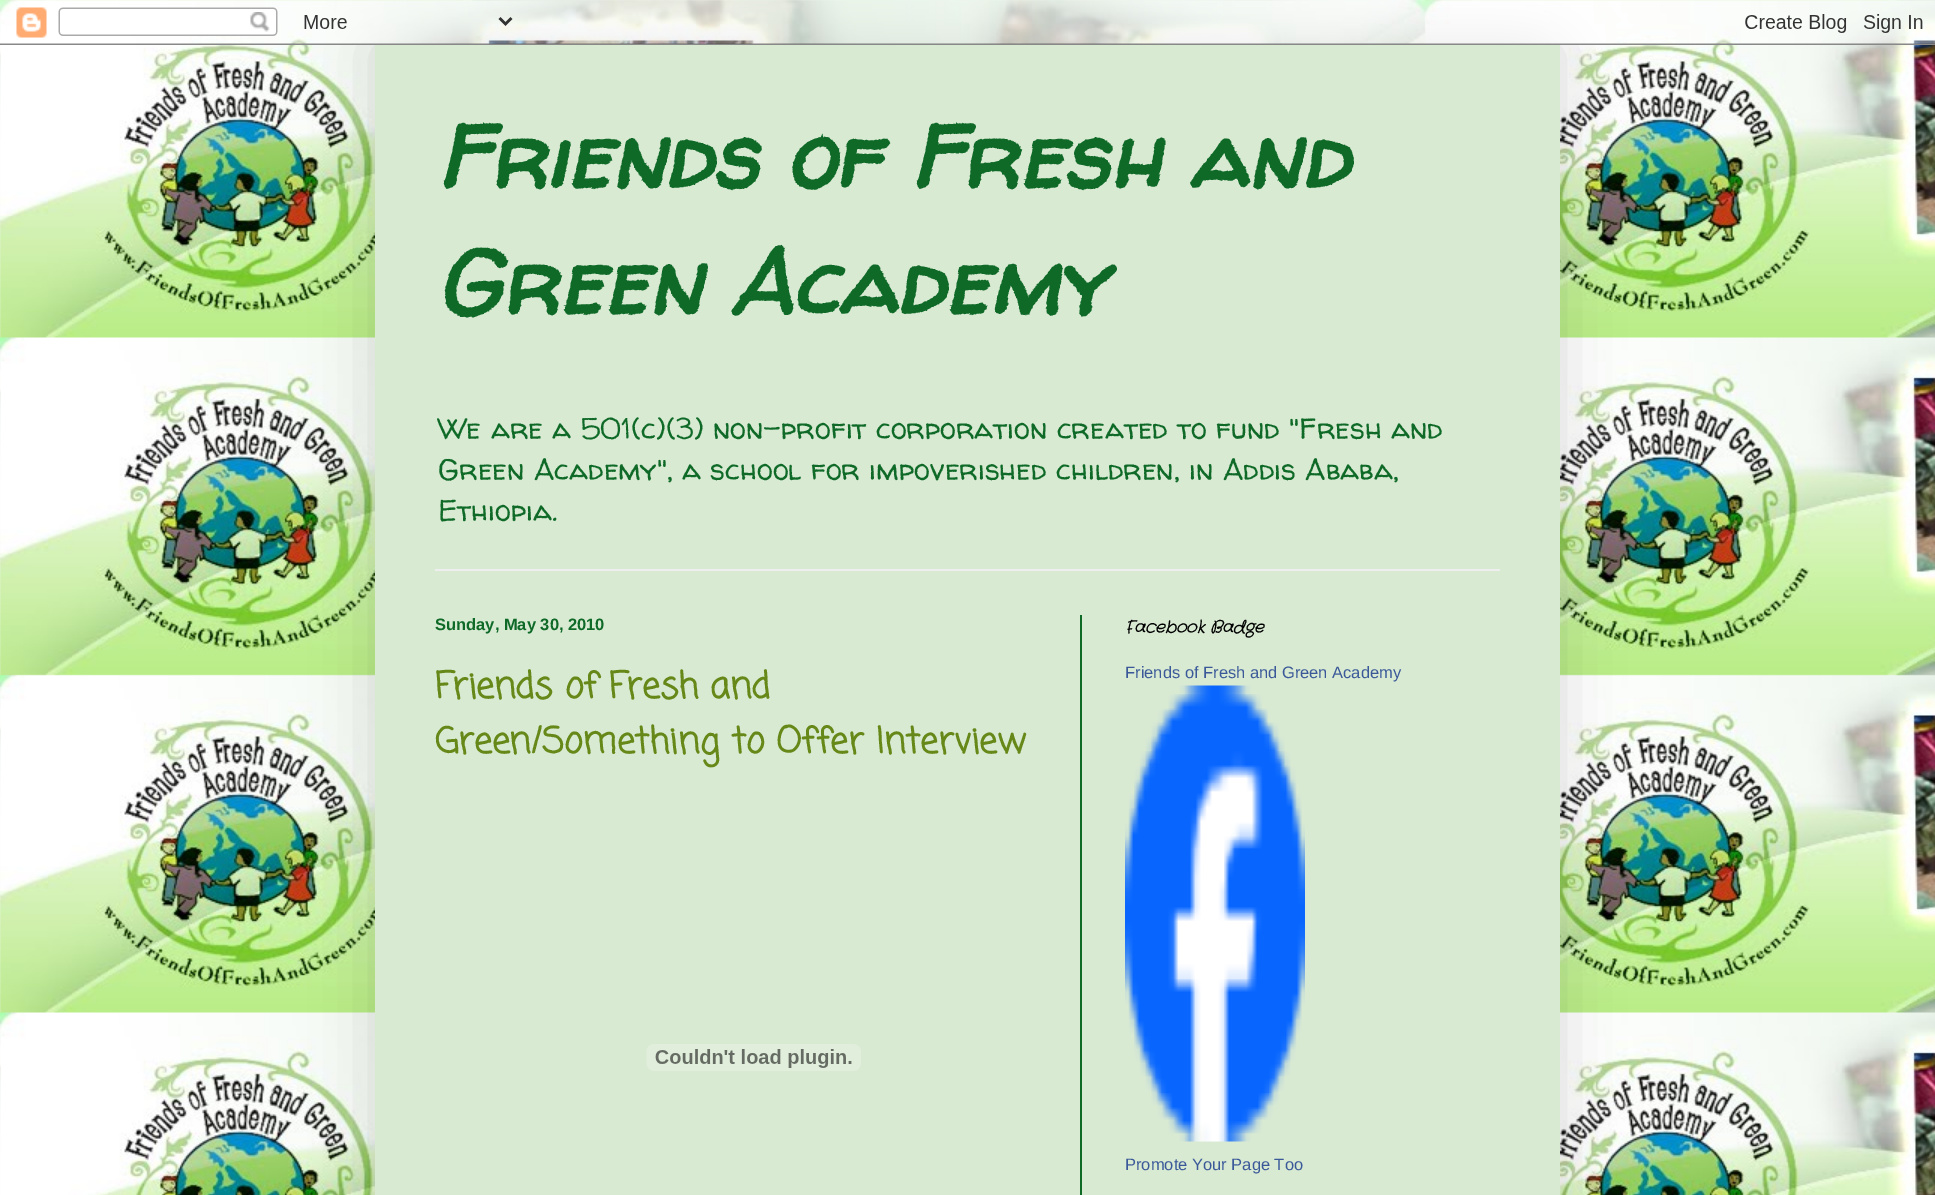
%!PS
<< /PageSize [1935 1195] /PageUsesTransparency true >> setpagedevice
/rgb { 3 { 255 div 3 1 roll } repeat setrgbcolor } def
/font { [ exch dup neg 0 0 3 -1 roll 0 0 ] selectfont } def
/text { moveto show } def
/alpha { dup .setfillconstantalpha .setstrokeconstantalpha } def
/roundrect { 5 dict begin { /r /h /w /y /x } { exch def } forall
  x r add y moveto x w add y 2 copy h add r arct x w add y h add x 1 index r arct
  x y h add x y r arct x y 2 copy exch w add exch r arct closepath end } def
/shadow { 12 dict begin { /a /b /q /h /w /y /x } { exch def } forall gsave /was 0 def
  9 -2 -9 { dup b mul 4 div /e exch def 1 sub .425 mul 2.718 exch exp 1 add a .99 .min exch div /now exch def
    1 1 now sub 1 was sub div sub alpha /was now def
    w h .min e 2 mul add 0 gt { x e sub y e sub w e 2 mul add h e 2 mul add
      q e add b .6 mul add w h .min 2 div e add .min 0 .max roundrect fill } if } for grestore end } def
/picture { 5 dict begin { /h /w /y /x /name } { exch def } forall
  gsave x y translate w h scale
  w h 8 [w 0 0 h 0 0] name (r) file false 3 colorimage grestore end } def
0 .pushpdf14devicefilter
0 1195 translate 1 -1 scale
4 setmiterlimit
255 255 255 rgb
0 0 1935 1195 rectfill
(img_01.rgb) 0 0 1935 1195 picture
0 0 0 rgb
375 45 1185 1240 0 30 0.15 shadow
(img_02.rgb) 0 0 1935 45 picture
217 234 211 rgb
375 45 1185 1150 rectfill
238 238 238 rgb
435 569 1065 2 rectfill
15 106 40 rgb
1080 615 2 580 rectfill
(img_03.rgb) 646 1044 215 27 picture
(img_04.rgb) 1125 685 180 457 picture
/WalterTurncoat-BoldItalic 90 font
(Friends of Fresh and) 435 189 text
(Green Academy) 435 315 text
/WalterTurncoat-Regular 29.4 font
(We are a 501\(c\)\(3\) non-profit corporation created to fund "Fresh and) 438 439 text
(Green Academy", a school for impoverished children, in Addis Ababa,) 438 480 text
(Ethiopia.) 438 521 text
/LiberationSans-Bold 16.5 font
(Sunday, May 30, 2010) 435 630 text
/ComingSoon-Bold 36 font
101 136 24 rgb
(Friends of Fresh and) 435 698 text
(Green/Something to Offer Interview) 435 753 text
/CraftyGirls-BoldItalic 16.5 font
0 0 0 rgb
(Facebook Badge) 1125 632 text
/LiberationSans-Regular 16.5 font
59 89 152 rgb
(Friends of Fresh and Green Academy) 1125 678 text
(Promote Your Page Too) 1125 1170 text
.poppdf14devicefilter showpage
